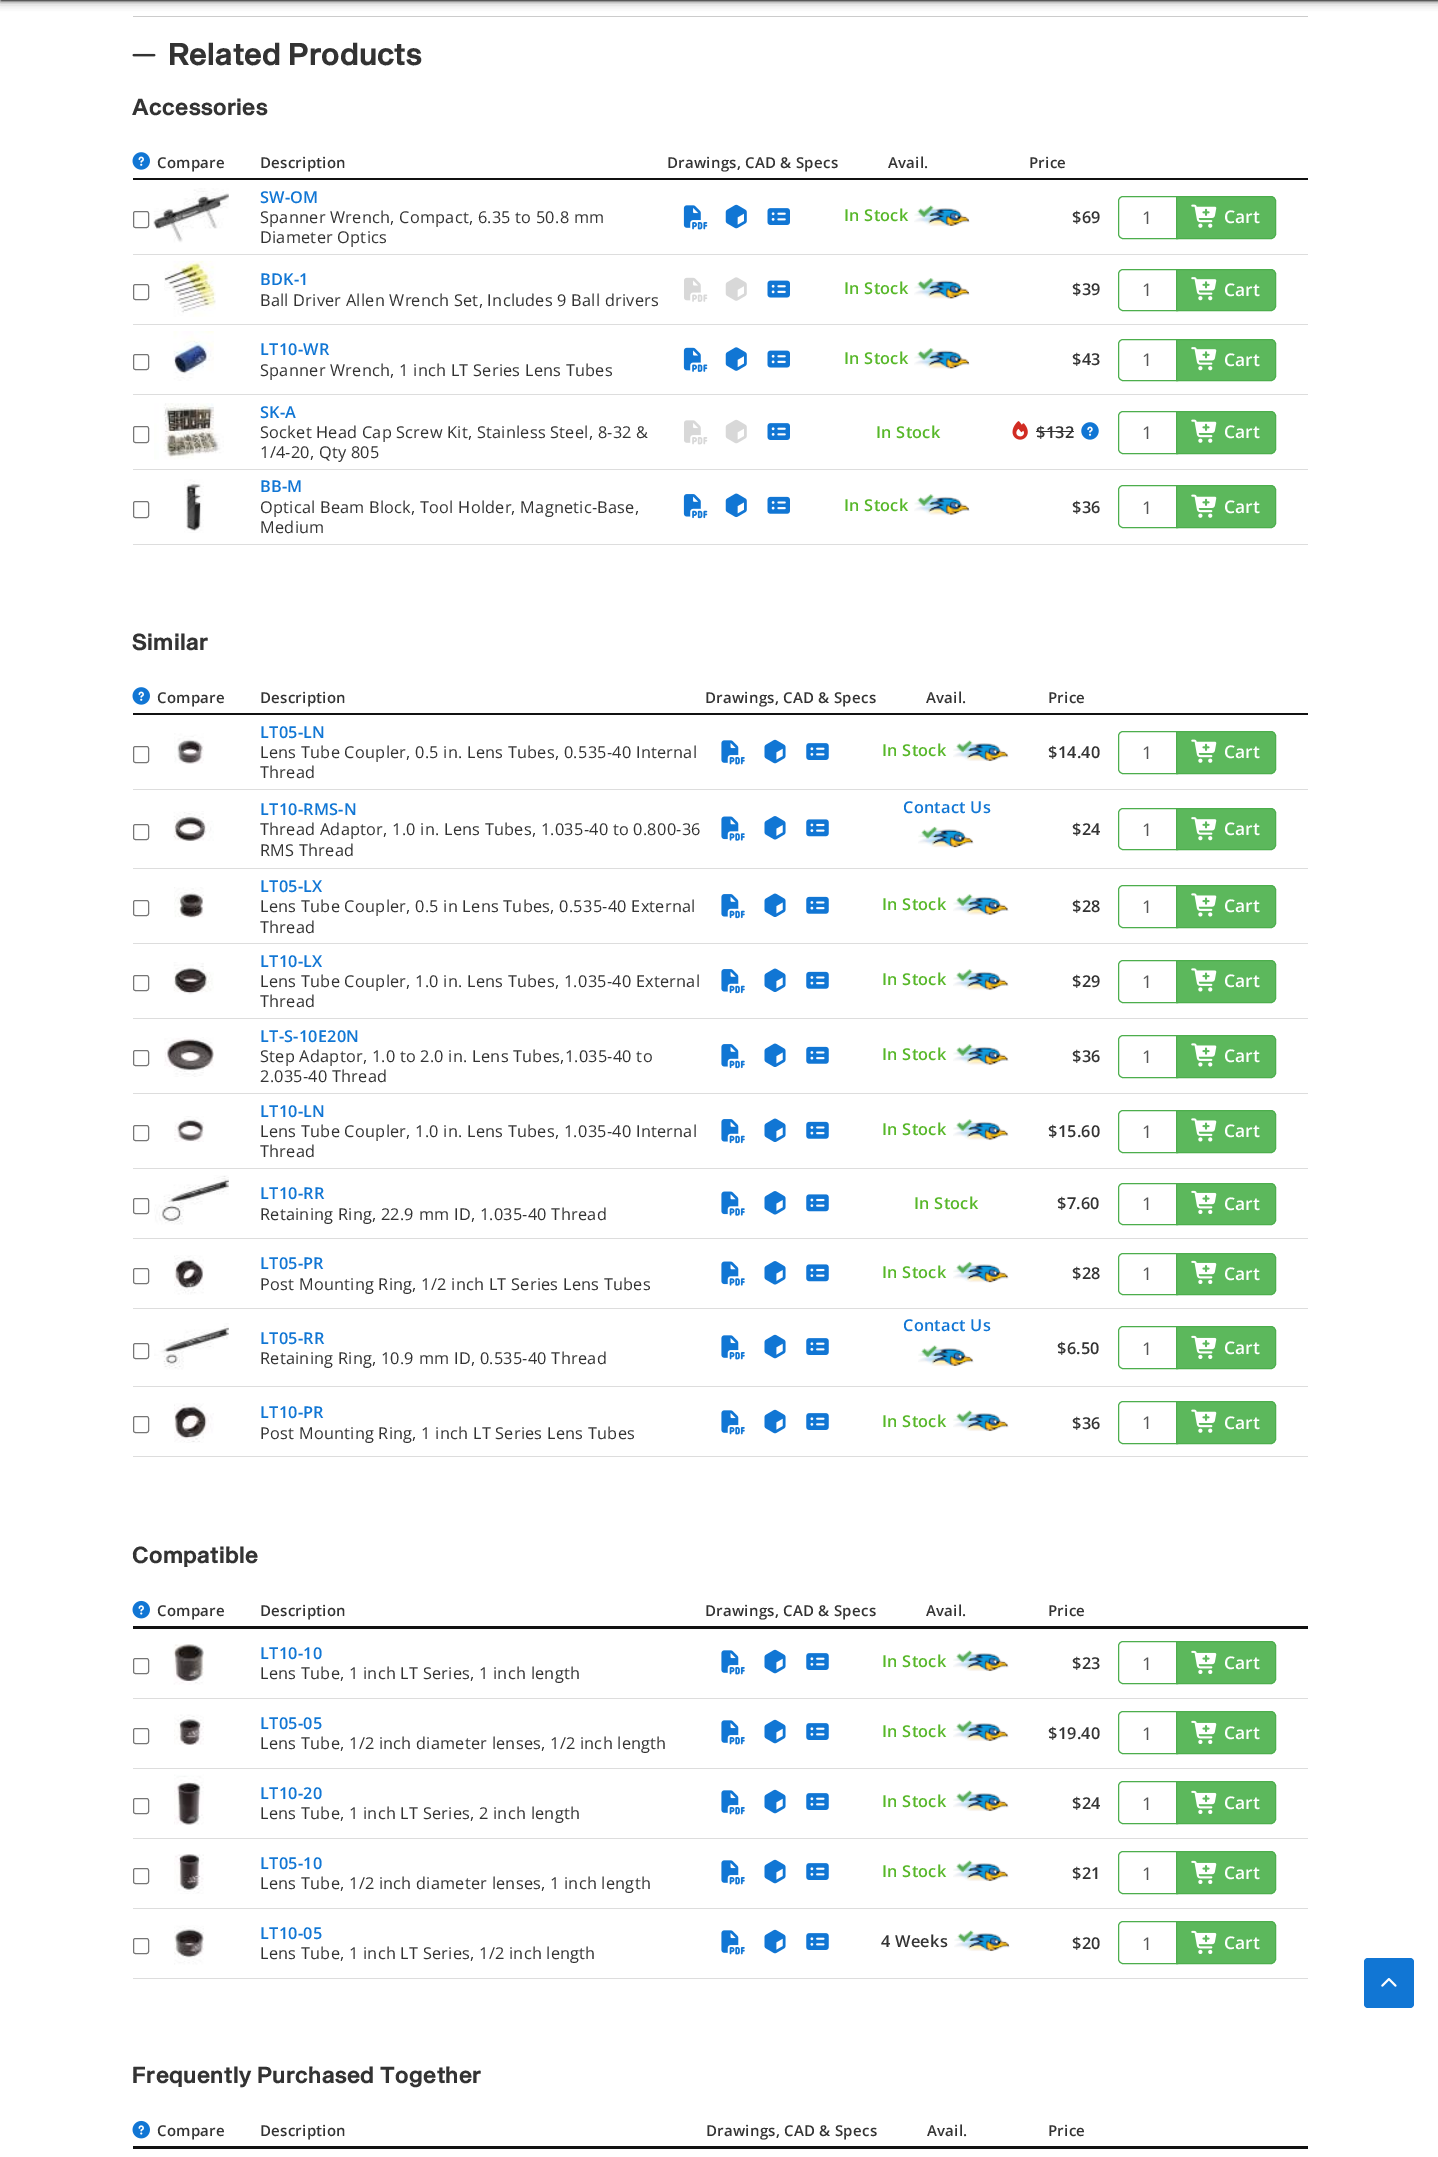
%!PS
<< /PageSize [1438 2157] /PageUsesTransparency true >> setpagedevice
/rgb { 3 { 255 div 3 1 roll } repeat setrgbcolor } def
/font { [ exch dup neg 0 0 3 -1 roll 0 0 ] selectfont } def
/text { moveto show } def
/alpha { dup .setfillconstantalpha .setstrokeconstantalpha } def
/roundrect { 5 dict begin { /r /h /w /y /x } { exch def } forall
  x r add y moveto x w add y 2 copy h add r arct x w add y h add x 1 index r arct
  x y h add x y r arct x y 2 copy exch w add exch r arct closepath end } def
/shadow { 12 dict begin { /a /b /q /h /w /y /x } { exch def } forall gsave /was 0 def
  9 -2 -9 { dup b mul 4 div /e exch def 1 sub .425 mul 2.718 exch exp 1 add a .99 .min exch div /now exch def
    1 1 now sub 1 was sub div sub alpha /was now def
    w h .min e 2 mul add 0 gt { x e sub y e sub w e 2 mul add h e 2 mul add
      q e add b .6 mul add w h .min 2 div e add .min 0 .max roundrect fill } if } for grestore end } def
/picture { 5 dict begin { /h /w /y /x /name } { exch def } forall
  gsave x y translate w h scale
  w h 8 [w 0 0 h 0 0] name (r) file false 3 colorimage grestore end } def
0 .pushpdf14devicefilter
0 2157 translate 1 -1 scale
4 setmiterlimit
255 255 255 rgb
0 0 1438 2157 rectfill
92 92 92 rgb
0 -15 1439 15 0 5 1 shadow
51 51 51 rgb
1 -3 1437 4 0 1 1 shadow
204 204 204 rgb
133 16 1175 1 rectfill
(img_01.rgb) 132 53 24 4 picture
17 17 17 rgb
133 178 1175 2 rectfill
(img_02.rgb) 132 152 18 18 picture
(img_03.rgb) 153 188 76 55 picture
(img_04.rgb) 683 205 25 25 picture
(img_05.rgb) 725 204 22 25 picture
(img_06.rgb) 767 208 23 17 picture
(img_07.rgb) 914 205 56 22 picture
76 174 76 rgb
1123 196.5 moveto 54.5 0 rlineto 0 42 rlineto -54.5 0 rlineto -2.5 0 -4.5 -2 -4.5 -4.5 rcurveto 0 -33 rlineto 0 -2.5 2 -4.5 4.5 -4.5 rcurveto closepath stroke
92 184 92 rgb
1176.5 196.5 moveto 94.5 0 rlineto 2.5 0 4.5 2 4.5 4.5 rcurveto 0 33 rlineto 0 2.5 -2 4.5 -4.5 4.5 rcurveto -94.5 0 rlineto closepath gsave fill grestore
76 174 76 rgb
stroke
(img_08.rgb) 1191 204 26 24 picture
221 221 221 rgb
133 254 1175 1 rectfill
118 118 118 rgb
133.5 211.5 15 16 2 roundrect stroke
(img_09.rgb) 164 260 52 57 picture
(img_10.rgb) 684 277 24 25 picture
(img_11.rgb) 725 277 22 24 picture
(img_12.rgb) 767 280 23 18 picture
(img_13.rgb) 914 278 56 21 picture
76 174 76 rgb
1123 269.5 moveto 54.5 0 rlineto 0 41 rlineto -54.5 0 rlineto -2.5 0 -4.5 -2 -4.5 -4.5 rcurveto 0 -32 rlineto 0 -2.5 2 -4.5 4.5 -4.5 rcurveto closepath stroke
92 184 92 rgb
1176.5 269.5 moveto 94.5 0 rlineto 2.5 0 4.5 2 4.5 4.5 rcurveto 0 32 rlineto 0 2.5 -2 4.5 -4.5 4.5 rcurveto -94.5 0 rlineto closepath gsave fill grestore
76 174 76 rgb
stroke
(img_14.rgb) 1191 277 26 24 picture
221 221 221 rgb
133 324 1175 1 rectfill
118 118 118 rgb
133.5 284.5 15 15 2 roundrect stroke
(img_15.rgb) 173 331 41 50 picture
(img_16.rgb) 683 347 25 25 picture
(img_17.rgb) 725 347 22 24 picture
(img_12.rgb) 767 350 23 18 picture
(img_13.rgb) 914 348 56 21 picture
76 174 76 rgb
1123 339.5 moveto 54.5 0 rlineto 0 41 rlineto -54.5 0 rlineto -2.5 0 -4.5 -2 -4.5 -4.5 rcurveto 0 -32 rlineto 0 -2.5 2 -4.5 4.5 -4.5 rcurveto closepath stroke
92 184 92 rgb
1176.5 339.5 moveto 94.5 0 rlineto 2.5 0 4.5 2 4.5 4.5 rcurveto 0 32 rlineto 0 2.5 -2 4.5 -4.5 4.5 rcurveto -94.5 0 rlineto closepath gsave fill grestore
76 174 76 rgb
stroke
(img_14.rgb) 1191 347 26 24 picture
221 221 221 rgb
133 394 1175 1 rectfill
118 118 118 rgb
133.5 354.5 15 15 2 roundrect stroke
(img_18.rgb) 154 403 70 57 picture
(img_19.rgb) 684 420 24 25 picture
(img_20.rgb) 725 419 22 25 picture
(img_06.rgb) 767 423 23 17 picture
(img_21.rgb) 1012 421 16 19 picture
51 51 51 rgb
1036 431 38 1 rectfill
(img_22.rgb) 1081 422 18 18 picture
76 174 76 rgb
1123 411.5 moveto 54.5 0 rlineto 0 42 rlineto -54.5 0 rlineto -2.5 0 -4.5 -2 -4.5 -4.5 rcurveto 0 -33 rlineto 0 -2.5 2 -4.5 4.5 -4.5 rcurveto closepath stroke
92 184 92 rgb
1176.5 411.5 moveto 94.5 0 rlineto 2.5 0 4.5 2 4.5 4.5 rcurveto 0 33 rlineto 0 2.5 -2 4.5 -4.5 4.5 rcurveto -94.5 0 rlineto closepath gsave fill grestore
76 174 76 rgb
stroke
(img_08.rgb) 1191 419 26 24 picture
221 221 221 rgb
133 469 1175 1 rectfill
118 118 118 rgb
133.5 426.5 15 16 2 roundrect stroke
(img_23.rgb) 184 479 20 54 picture
(img_24.rgb) 683 494 25 25 picture
(img_25.rgb) 725 493 22 25 picture
(img_26.rgb) 767 496 23 18 picture
(img_27.rgb) 914 494 56 22 picture
76 174 76 rgb
1123 485.5 moveto 54.5 0 rlineto 0 42 rlineto -54.5 0 rlineto -2.5 0 -4.5 -2 -4.5 -4.5 rcurveto 0 -33 rlineto 0 -2.5 2 -4.5 4.5 -4.5 rcurveto closepath stroke
92 184 92 rgb
1176.5 485.5 moveto 94.5 0 rlineto 2.5 0 4.5 2 4.5 4.5 rcurveto 0 33 rlineto 0 2.5 -2 4.5 -4.5 4.5 rcurveto -94.5 0 rlineto closepath gsave fill grestore
76 174 76 rgb
stroke
(img_08.rgb) 1191 494 26 24 picture
221 221 221 rgb
133 544 1175 1 rectfill
118 118 118 rgb
133.5 501.5 15 16 2 roundrect stroke
17 17 17 rgb
133 713 1175 2 rectfill
(img_02.rgb) 132 687 18 18 picture
(img_28.rgb) 174 733 30 31 picture
(img_29.rgb) 721 740 24 25 picture
(img_30.rgb) 764 739 22 25 picture
(img_31.rgb) 806 743 23 17 picture
(img_32.rgb) 953 740 56 22 picture
76 174 76 rgb
1123 731.5 moveto 54.5 0 rlineto 0 42 rlineto -54.5 0 rlineto -2.5 0 -4.5 -2 -4.5 -4.5 rcurveto 0 -33 rlineto 0 -2.5 2 -4.5 4.5 -4.5 rcurveto closepath stroke
92 184 92 rgb
1176.5 731.5 moveto 94.5 0 rlineto 2.5 0 4.5 2 4.5 4.5 rcurveto 0 33 rlineto 0 2.5 -2 4.5 -4.5 4.5 rcurveto -94.5 0 rlineto closepath gsave fill grestore
76 174 76 rgb
stroke
(img_08.rgb) 1191 739 26 24 picture
221 221 221 rgb
133 789 1175 1 rectfill
118 118 118 rgb
133.5 746.5 15 16 2 roundrect stroke
(img_33.rgb) 173 811 41 30 picture
(img_34.rgb) 721 816 24 25 picture
(img_35.rgb) 764 816 22 24 picture
(img_36.rgb) 806 819 23 18 picture
(img_37.rgb) 918 826 56 22 picture
76 174 76 rgb
1123 808.5 moveto 54.5 0 rlineto 0 41 rlineto -54.5 0 rlineto -2.5 0 -4.5 -2 -4.5 -4.5 rcurveto 0 -32 rlineto 0 -2.5 2 -4.5 4.5 -4.5 rcurveto closepath stroke
92 184 92 rgb
1176.5 808.5 moveto 94.5 0 rlineto 2.5 0 4.5 2 4.5 4.5 rcurveto 0 32 rlineto 0 2.5 -2 4.5 -4.5 4.5 rcurveto -94.5 0 rlineto closepath gsave fill grestore
76 174 76 rgb
stroke
(img_14.rgb) 1191 817 26 24 picture
221 221 221 rgb
133 868 1175 1 rectfill
118 118 118 rgb
133.5 824.5 15 15 2 roundrect stroke
(img_38.rgb) 174 887 30 31 picture
(img_39.rgb) 721 894 24 25 picture
(img_40.rgb) 764 893 22 24 picture
(img_41.rgb) 806 896 23 18 picture
(img_42.rgb) 953 894 56 22 picture
76 174 76 rgb
1123 885.5 moveto 54.5 0 rlineto 0 42 rlineto -54.5 0 rlineto -2.5 0 -4.5 -2 -4.5 -4.5 rcurveto 0 -33 rlineto 0 -2.5 2 -4.5 4.5 -4.5 rcurveto closepath stroke
92 184 92 rgb
1176.5 885.5 moveto 94.5 0 rlineto 2.5 0 4.5 2 4.5 4.5 rcurveto 0 33 rlineto 0 2.5 -2 4.5 -4.5 4.5 rcurveto -94.5 0 rlineto closepath gsave fill grestore
76 174 76 rgb
stroke
(img_43.rgb) 1191 893 26 24 picture
221 221 221 rgb
133 943 1175 1 rectfill
118 118 118 rgb
133.5 900.5 15 15 2 roundrect stroke
(img_44.rgb) 173 962 41 33 picture
(img_39.rgb) 721 969 24 25 picture
(img_40.rgb) 764 968 22 24 picture
(img_41.rgb) 806 971 23 18 picture
(img_45.rgb) 953 969 56 22 picture
76 174 76 rgb
1123 960.5 moveto 54.5 0 rlineto 0 42 rlineto -54.5 0 rlineto -2.5 0 -4.5 -2 -4.5 -4.5 rcurveto 0 -33 rlineto 0 -2.5 2 -4.5 4.5 -4.5 rcurveto closepath stroke
92 184 92 rgb
1176.5 960.5 moveto 94.5 0 rlineto 2.5 0 4.5 2 4.5 4.5 rcurveto 0 33 rlineto 0 2.5 -2 4.5 -4.5 4.5 rcurveto -94.5 0 rlineto closepath gsave fill grestore
76 174 76 rgb
stroke
(img_43.rgb) 1191 968 26 24 picture
221 221 221 rgb
133 1018 1175 1 rectfill
118 118 118 rgb
133.5 975.5 15 15 2 roundrect stroke
(img_46.rgb) 164 1037 50 40 picture
(img_39.rgb) 721 1044 24 25 picture
(img_40.rgb) 764 1043 22 24 picture
(img_41.rgb) 806 1046 23 18 picture
(img_45.rgb) 953 1044 56 22 picture
76 174 76 rgb
1123 1035.5 moveto 54.5 0 rlineto 0 42 rlineto -54.5 0 rlineto -2.5 0 -4.5 -2 -4.5 -4.5 rcurveto 0 -33 rlineto 0 -2.5 2 -4.5 4.5 -4.5 rcurveto closepath stroke
92 184 92 rgb
1176.5 1035.5 moveto 94.5 0 rlineto 2.5 0 4.5 2 4.5 4.5 rcurveto 0 33 rlineto 0 2.5 -2 4.5 -4.5 4.5 rcurveto -94.5 0 rlineto closepath gsave fill grestore
76 174 76 rgb
stroke
(img_43.rgb) 1191 1043 26 24 picture
221 221 221 rgb
133 1093 1175 1 rectfill
118 118 118 rgb
133.5 1050.5 15 15 2 roundrect stroke
(img_47.rgb) 174 1116 30 26 picture
(img_39.rgb) 721 1119 24 25 picture
(img_40.rgb) 764 1118 22 24 picture
(img_41.rgb) 806 1121 23 18 picture
(img_45.rgb) 953 1119 56 22 picture
76 174 76 rgb
1123 1110.5 moveto 54.5 0 rlineto 0 42 rlineto -54.5 0 rlineto -2.5 0 -4.5 -2 -4.5 -4.5 rcurveto 0 -33 rlineto 0 -2.5 2 -4.5 4.5 -4.5 rcurveto closepath stroke
92 184 92 rgb
1176.5 1110.5 moveto 94.5 0 rlineto 2.5 0 4.5 2 4.5 4.5 rcurveto 0 33 rlineto 0 2.5 -2 4.5 -4.5 4.5 rcurveto -94.5 0 rlineto closepath gsave fill grestore
76 174 76 rgb
stroke
(img_43.rgb) 1191 1118 26 24 picture
221 221 221 rgb
133 1168 1175 1 rectfill
118 118 118 rgb
133.5 1125.5 15 15 2 roundrect stroke
(img_48.rgb) 154 1175 75 50 picture
(img_34.rgb) 721 1191 24 25 picture
(img_35.rgb) 764 1191 22 24 picture
(img_36.rgb) 806 1194 23 18 picture
76 174 76 rgb
1123 1183.5 moveto 54.5 0 rlineto 0 41 rlineto -54.5 0 rlineto -2.5 0 -4.5 -2 -4.5 -4.5 rcurveto 0 -32 rlineto 0 -2.5 2 -4.5 4.5 -4.5 rcurveto closepath stroke
92 184 92 rgb
1176.5 1183.5 moveto 94.5 0 rlineto 2.5 0 4.5 2 4.5 4.5 rcurveto 0 32 rlineto 0 2.5 -2 4.5 -4.5 4.5 rcurveto -94.5 0 rlineto closepath gsave fill grestore
76 174 76 rgb
stroke
(img_49.rgb) 1191 1190 26 24 picture
221 221 221 rgb
133 1238 1175 1 rectfill
118 118 118 rgb
133.5 1198.5 15 15 2 roundrect stroke
(img_50.rgb) 174 1255 30 40 picture
(img_34.rgb) 721 1261 24 25 picture
(img_35.rgb) 764 1261 22 24 picture
(img_36.rgb) 806 1264 23 18 picture
(img_37.rgb) 953 1261 56 22 picture
76 174 76 rgb
1123 1253.5 moveto 54.5 0 rlineto 0 41 rlineto -54.5 0 rlineto -2.5 0 -4.5 -2 -4.5 -4.5 rcurveto 0 -32 rlineto 0 -2.5 2 -4.5 4.5 -4.5 rcurveto closepath stroke
92 184 92 rgb
1176.5 1253.5 moveto 94.5 0 rlineto 2.5 0 4.5 2 4.5 4.5 rcurveto 0 32 rlineto 0 2.5 -2 4.5 -4.5 4.5 rcurveto -94.5 0 rlineto closepath gsave fill grestore
76 174 76 rgb
stroke
(img_49.rgb) 1191 1260 26 24 picture
221 221 221 rgb
133 1308 1175 1 rectfill
118 118 118 rgb
133.5 1268.5 15 15 2 roundrect stroke
(img_51.rgb) 154 1323 75 47 picture
(img_29.rgb) 721 1335 24 25 picture
(img_30.rgb) 764 1334 22 25 picture
(img_31.rgb) 806 1338 23 17 picture
(img_32.rgb) 918 1345 56 22 picture
76 174 76 rgb
1123 1326.5 moveto 54.5 0 rlineto 0 42 rlineto -54.5 0 rlineto -2.5 0 -4.5 -2 -4.5 -4.5 rcurveto 0 -33 rlineto 0 -2.5 2 -4.5 4.5 -4.5 rcurveto closepath stroke
92 184 92 rgb
1176.5 1326.5 moveto 94.5 0 rlineto 2.5 0 4.5 2 4.5 4.5 rcurveto 0 33 rlineto 0 2.5 -2 4.5 -4.5 4.5 rcurveto -94.5 0 rlineto closepath gsave fill grestore
76 174 76 rgb
stroke
(img_49.rgb) 1191 1335 26 24 picture
221 221 221 rgb
133 1386 1175 1 rectfill
118 118 118 rgb
133.5 1343.5 15 15 2 roundrect stroke
(img_52.rgb) 174 1403 40 40 picture
(img_29.rgb) 721 1410 24 25 picture
(img_30.rgb) 764 1409 22 25 picture
(img_31.rgb) 806 1413 23 17 picture
(img_32.rgb) 953 1410 56 22 picture
221 221 221 rgb
133 1456 1175 1 rectfill
118 118 118 rgb
133.5 1416.5 15 16 2 roundrect stroke
76 174 76 rgb
1123 1401.5 moveto 54.5 0 rlineto 0 42 rlineto -54.5 0 rlineto -2.5 0 -4.5 -2 -4.5 -4.5 rcurveto 0 -33 rlineto 0 -2.5 2 -4.5 4.5 -4.5 rcurveto closepath stroke
92 184 92 rgb
1176.5 1401.5 moveto 94.5 0 rlineto 2.5 0 4.5 2 4.5 4.5 rcurveto 0 33 rlineto 0 2.5 -2 4.5 -4.5 4.5 rcurveto -94.5 0 rlineto closepath gsave fill grestore
76 174 76 rgb
stroke
(img_08.rgb) 1191 1409 26 24 picture
17 17 17 rgb
133 1626 1175 3 rectfill
(img_53.rgb) 132 1600 18 19 picture
(img_54.rgb) 173 1644 31 41 picture
(img_29.rgb) 721 1650 24 25 picture
(img_30.rgb) 764 1649 22 25 picture
(img_31.rgb) 806 1653 23 17 picture
(img_32.rgb) 953 1650 56 22 picture
76 174 76 rgb
1123 1641.5 moveto 54.5 0 rlineto 0 42 rlineto -54.5 0 rlineto -2.5 0 -4.5 -2 -4.5 -4.5 rcurveto 0 -33 rlineto 0 -2.5 2 -4.5 4.5 -4.5 rcurveto closepath stroke
92 184 92 rgb
1176.5 1641.5 moveto 94.5 0 rlineto 2.5 0 4.5 2 4.5 4.5 rcurveto 0 33 rlineto 0 2.5 -2 4.5 -4.5 4.5 rcurveto -94.5 0 rlineto closepath gsave fill grestore
76 174 76 rgb
stroke
(img_49.rgb) 1191 1650 26 24 picture
221 221 221 rgb
133 1698 1175 1 rectfill
118 118 118 rgb
133.5 1658.5 15 15 2 roundrect stroke
(img_55.rgb) 174 1714 30 31 picture
(img_29.rgb) 721 1720 24 25 picture
(img_30.rgb) 764 1719 22 25 picture
(img_31.rgb) 806 1723 23 17 picture
(img_32.rgb) 953 1720 56 22 picture
76 174 76 rgb
1123 1711.5 moveto 54.5 0 rlineto 0 42 rlineto -54.5 0 rlineto -2.5 0 -4.5 -2 -4.5 -4.5 rcurveto 0 -33 rlineto 0 -2.5 2 -4.5 4.5 -4.5 rcurveto closepath stroke
92 184 92 rgb
1176.5 1711.5 moveto 94.5 0 rlineto 2.5 0 4.5 2 4.5 4.5 rcurveto 0 33 rlineto 0 2.5 -2 4.5 -4.5 4.5 rcurveto -94.5 0 rlineto closepath gsave fill grestore
76 174 76 rgb
stroke
(img_49.rgb) 1191 1720 26 24 picture
221 221 221 rgb
133 1768 1175 1 rectfill
118 118 118 rgb
133.5 1728.5 15 15 2 roundrect stroke
(img_56.rgb) 174 1774 30 51 picture
(img_29.rgb) 721 1790 24 25 picture
(img_30.rgb) 764 1789 22 25 picture
(img_31.rgb) 806 1793 23 17 picture
(img_32.rgb) 953 1790 56 22 picture
76 174 76 rgb
1123 1781.5 moveto 54.5 0 rlineto 0 42 rlineto -54.5 0 rlineto -2.5 0 -4.5 -2 -4.5 -4.5 rcurveto 0 -33 rlineto 0 -2.5 2 -4.5 4.5 -4.5 rcurveto closepath stroke
92 184 92 rgb
1176.5 1781.5 moveto 94.5 0 rlineto 2.5 0 4.5 2 4.5 4.5 rcurveto 0 33 rlineto 0 2.5 -2 4.5 -4.5 4.5 rcurveto -94.5 0 rlineto closepath gsave fill grestore
76 174 76 rgb
stroke
(img_49.rgb) 1191 1790 26 24 picture
221 221 221 rgb
133 1838 1175 1 rectfill
118 118 118 rgb
133.5 1798.5 15 15 2 roundrect stroke
(img_57.rgb) 174 1854 30 40 picture
(img_29.rgb) 721 1860 24 25 picture
(img_30.rgb) 764 1859 22 25 picture
(img_31.rgb) 806 1863 23 17 picture
(img_32.rgb) 953 1860 56 22 picture
76 174 76 rgb
1123 1851.5 moveto 54.5 0 rlineto 0 42 rlineto -54.5 0 rlineto -2.5 0 -4.5 -2 -4.5 -4.5 rcurveto 0 -33 rlineto 0 -2.5 2 -4.5 4.5 -4.5 rcurveto closepath stroke
92 184 92 rgb
1176.5 1851.5 moveto 94.5 0 rlineto 2.5 0 4.5 2 4.5 4.5 rcurveto 0 33 rlineto 0 2.5 -2 4.5 -4.5 4.5 rcurveto -94.5 0 rlineto closepath gsave fill grestore
76 174 76 rgb
stroke
(img_49.rgb) 1191 1860 26 24 picture
221 221 221 rgb
133 1908 1175 1 rectfill
118 118 118 rgb
133.5 1868.5 15 15 2 roundrect stroke
(img_58.rgb) 174 1925 30 40 picture
(img_29.rgb) 721 1930 24 25 picture
(img_30.rgb) 764 1929 22 25 picture
(img_31.rgb) 806 1933 23 17 picture
(img_59.rgb) 954 1930 56 22 picture
76 174 76 rgb
1123 1921.5 moveto 54.5 0 rlineto 0 42 rlineto -54.5 0 rlineto -2.5 0 -4.5 -2 -4.5 -4.5 rcurveto 0 -33 rlineto 0 -2.5 2 -4.5 4.5 -4.5 rcurveto closepath stroke
92 184 92 rgb
1176.5 1921.5 moveto 94.5 0 rlineto 2.5 0 4.5 2 4.5 4.5 rcurveto 0 33 rlineto 0 2.5 -2 4.5 -4.5 4.5 rcurveto -94.5 0 rlineto closepath gsave fill grestore
76 174 76 rgb
stroke
(img_49.rgb) 1191 1930 26 24 picture
221 221 221 rgb
133 1978 1175 1 rectfill
118 118 118 rgb
133.5 1938.5 15 15 2 roundrect stroke
17 17 17 rgb
133 2146 1175 3 rectfill
(img_53.rgb) 132 2120 18 19 picture
17 118 212 rgb
1364 1958 50 50 4 roundrect fill
(img_60.rgb) 1381 1978 16 9 picture
/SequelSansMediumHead-Bold 29.75 font
51 51 51 rgb
168 65 moveto 0.9 0 (Related Products) ashow
/SequelSansMediumHead-Bold 21.9 font
132 115 moveto 0.9 0 (Accessories) ashow
/OpenSans-SemiBold 15 font
157 168 moveto 0.25 0 (Compare) ashow
260 168 moveto 0.25 0 (Description) ashow
667 168 moveto 0.25 0 (Drawings, CAD & Specs) ashow
888 168 moveto 0.25 0 (Avail.) ashow
1029 168 moveto 0.25 0 (Price) ashow
/OpenSans-SemiBold 16.3 font
17 118 212 rgb
260 203 moveto 0.25 0 (SW-OM) ashow
/OpenSans-Regular 16.3 font
51 51 51 rgb
260 223 moveto 0.25 0 (Spanner Wrench, Compact, 6.35 to 50.8 mm) ashow
260 243 moveto 0.25 0 (Diameter Optics) ashow
/OpenSans-SemiBold 16.3 font
87 183 41 rgb
844 221 moveto 0.25 0 (In Stock) ashow
51 51 51 rgb
1072 223 moveto 0.25 0 ($69) ashow
/OpenSans-Regular 17.5 font
85 85 85 rgb
(1) 1142 224 text
/OpenSans-SemiBold 17.5 font
255 255 255 rgb
(Cart) 1224 223 text
/OpenSans-SemiBold 16.3 font
17 118 212 rgb
260 285 moveto 0.25 0 (BDK-1) ashow
/OpenSans-Regular 16.3 font
51 51 51 rgb
260 306 moveto 0.25 0 (Ball Driver Allen Wrench Set, Includes 9 Ball drivers) ashow
/OpenSans-SemiBold 16.3 font
87 183 41 rgb
844 294 moveto 0.25 0 (In Stock) ashow
51 51 51 rgb
1072 295 moveto 0.25 0 ($39) ashow
/OpenSans-Regular 17.5 font
85 85 85 rgb
(1) 1142 296 text
/OpenSans-SemiBold 17.5 font
255 255 255 rgb
(Cart) 1224 296 text
/OpenSans-SemiBold 16.3 font
17 118 212 rgb
260 355 moveto 0.25 0 (LT10-WR) ashow
/OpenSans-Regular 16.3 font
51 51 51 rgb
260 376 moveto 0.25 0 (Spanner Wrench, 1 inch LT Series Lens Tubes) ashow
/OpenSans-SemiBold 16.3 font
87 183 41 rgb
844 364 moveto 0.25 0 (In Stock) ashow
51 51 51 rgb
1072 365 moveto 0.25 0 ($43) ashow
/OpenSans-Regular 17.5 font
85 85 85 rgb
(1) 1142 366 text
/OpenSans-SemiBold 17.5 font
255 255 255 rgb
(Cart) 1224 366 text
/OpenSans-SemiBold 16.3 font
17 118 212 rgb
260 418 moveto 0.25 0 (SK-A) ashow
/OpenSans-Regular 16.3 font
51 51 51 rgb
260 438 moveto 0.25 0 (Socket Head Cap Screw Kit, Stainless Steel, 8-32 &) ashow
260 458 moveto 0.25 0 (1/4-20, Qty 805) ashow
/OpenSans-SemiBold 16.3 font
87 183 41 rgb
876 438 moveto 0.25 0 (In Stock) ashow
51 51 51 rgb
1036 438 moveto 0.25 0 ($132) ashow
/OpenSans-Regular 17.5 font
85 85 85 rgb
(1) 1142 439 text
/OpenSans-SemiBold 17.5 font
255 255 255 rgb
(Cart) 1224 438 text
/OpenSans-SemiBold 16.3 font
17 118 212 rgb
260 492 moveto 0.25 0 (BB-M) ashow
/OpenSans-Regular 16.3 font
51 51 51 rgb
260 513 moveto 0.25 0 (Optical Beam Block, Tool Holder, Magnetic-Base,) ashow
260 533 moveto 0.25 0 (Medium) ashow
/OpenSans-SemiBold 16.3 font
87 183 41 rgb
844 511 moveto 0.25 0 (In Stock) ashow
51 51 51 rgb
1072 513 moveto 0.25 0 ($36) ashow
/OpenSans-Regular 17.5 font
85 85 85 rgb
(1) 1142 514 text
/OpenSans-SemiBold 17.5 font
255 255 255 rgb
(Cart) 1224 513 text
/SequelSansMediumHead-Bold 21.9 font
51 51 51 rgb
132 650 moveto 0.9 0 (Similar) ashow
/OpenSans-SemiBold 15 font
157 703 moveto 0.25 0 (Compare) ashow
260 703 moveto 0.25 0 (Description) ashow
705 703 moveto 0.25 0 (Drawings, CAD & Specs) ashow
926 703 moveto 0.25 0 (Avail.) ashow
1048 703 moveto 0.25 0 (Price) ashow
/OpenSans-SemiBold 16.3 font
17 118 212 rgb
260 738 moveto 0.25 0 (LT05-LN) ashow
/OpenSans-Regular 16.3 font
51 51 51 rgb
260 758 moveto 0.25 0 (Lens Tube Coupler, 0.5 in. Lens Tubes, 0.535-40 Internal) ashow
260 778 moveto 0.25 0 (Thread) ashow
/OpenSans-SemiBold 16.3 font
87 183 41 rgb
882 756 moveto 0.25 0 (In Stock) ashow
51 51 51 rgb
1048 758 moveto 0.25 0 ($14.40) ashow
/OpenSans-Regular 17.5 font
85 85 85 rgb
(1) 1142 759 text
/OpenSans-SemiBold 17.5 font
255 255 255 rgb
(Cart) 1224 758 text
/OpenSans-SemiBold 16.3 font
17 118 212 rgb
260 815 moveto 0.25 0 (LT10-RMS-N) ashow
/OpenSans-Regular 16.3 font
51 51 51 rgb
260 835 moveto 0.25 0 (Thread Adaptor, 1.0 in. Lens Tubes, 1.035-40 to 0.800-36) ashow
260 856 moveto 0.25 0 (RMS Thread) ashow
/OpenSans-SemiBold 16.3 font
17 118 212 rgb
903 813 moveto 0.25 0 (Contact Us) ashow
51 51 51 rgb
1072 835 moveto 0.25 0 ($24) ashow
/OpenSans-Regular 17.5 font
85 85 85 rgb
(1) 1142 836 text
/OpenSans-SemiBold 17.5 font
255 255 255 rgb
(Cart) 1224 835 text
/OpenSans-SemiBold 16.3 font
17 118 212 rgb
260 892 moveto 0.25 0 (LT05-LX) ashow
/OpenSans-Regular 16.3 font
51 51 51 rgb
260 912 moveto 0.25 0 (Lens Tube Coupler, 0.5 in Lens Tubes, 0.535-40 External) ashow
260 933 moveto 0.25 0 (Thread) ashow
/OpenSans-SemiBold 16.3 font
87 183 41 rgb
882 910 moveto 0.25 0 (In Stock) ashow
51 51 51 rgb
1072 912 moveto 0.25 0 ($28) ashow
/OpenSans-Regular 17.5 font
85 85 85 rgb
(1) 1142 913 text
/OpenSans-SemiBold 17.5 font
255 255 255 rgb
(Cart) 1224 912 text
/OpenSans-SemiBold 16.3 font
17 118 212 rgb
260 967 moveto 0.25 0 (LT10-LX) ashow
/OpenSans-Regular 16.3 font
51 51 51 rgb
260 987 moveto 0.25 0 (Lens Tube Coupler, 1.0 in. Lens Tubes, 1.035-40 External) ashow
260 1007 moveto 0.25 0 (Thread) ashow
/OpenSans-SemiBold 16.3 font
87 183 41 rgb
882 985 moveto 0.25 0 (In Stock) ashow
51 51 51 rgb
1072 987 moveto 0.25 0 ($29) ashow
/OpenSans-Regular 17.5 font
85 85 85 rgb
(1) 1142 988 text
/OpenSans-SemiBold 17.5 font
255 255 255 rgb
(Cart) 1224 987 text
/OpenSans-SemiBold 16.3 font
17 118 212 rgb
260 1042 moveto 0.25 0 (LT-S-10E20N) ashow
/OpenSans-Regular 16.3 font
51 51 51 rgb
260 1062 moveto 0.25 0 (Step Adaptor, 1.0 to 2.0 in. Lens Tubes,1.035-40 to) ashow
260 1082 moveto 0.25 0 (2.035-40 Thread) ashow
/OpenSans-SemiBold 16.3 font
87 183 41 rgb
882 1060 moveto 0.25 0 (In Stock) ashow
51 51 51 rgb
1072 1062 moveto 0.25 0 ($36) ashow
/OpenSans-Regular 17.5 font
85 85 85 rgb
(1) 1142 1063 text
/OpenSans-SemiBold 17.5 font
255 255 255 rgb
(Cart) 1224 1062 text
/OpenSans-SemiBold 16.3 font
17 118 212 rgb
260 1117 moveto 0.25 0 (LT10-LN) ashow
/OpenSans-Regular 16.3 font
51 51 51 rgb
260 1137 moveto 0.25 0 (Lens Tube Coupler, 1.0 in. Lens Tubes, 1.035-40 Internal) ashow
260 1157 moveto 0.25 0 (Thread) ashow
/OpenSans-SemiBold 16.3 font
87 183 41 rgb
882 1135 moveto 0.25 0 (In Stock) ashow
51 51 51 rgb
1048 1137 moveto 0.25 0 ($15.60) ashow
/OpenSans-Regular 17.5 font
85 85 85 rgb
(1) 1142 1138 text
/OpenSans-SemiBold 17.5 font
255 255 255 rgb
(Cart) 1224 1137 text
/OpenSans-SemiBold 16.3 font
17 118 212 rgb
260 1199 moveto 0.25 0 (LT10-RR) ashow
/OpenSans-Regular 16.3 font
51 51 51 rgb
260 1220 moveto 0.25 0 (Retaining Ring, 22.9 mm ID, 1.035-40 Thread) ashow
/OpenSans-SemiBold 16.3 font
87 183 41 rgb
914 1209 moveto 0.25 0 (In Stock) ashow
51 51 51 rgb
1057 1209 moveto 0.25 0 ($7.60) ashow
/OpenSans-Regular 17.5 font
85 85 85 rgb
(1) 1142 1210 text
/OpenSans-SemiBold 17.5 font
255 255 255 rgb
(Cart) 1224 1210 text
/OpenSans-SemiBold 16.3 font
17 118 212 rgb
260 1269 moveto 0.25 0 (LT05-PR) ashow
/OpenSans-Regular 16.3 font
51 51 51 rgb
260 1290 moveto 0.25 0 (Post Mounting Ring, 1/2 inch LT Series Lens Tubes) ashow
/OpenSans-SemiBold 16.3 font
87 183 41 rgb
882 1278 moveto 0.25 0 (In Stock) ashow
51 51 51 rgb
1072 1279 moveto 0.25 0 ($28) ashow
/OpenSans-Regular 17.5 font
85 85 85 rgb
(1) 1142 1280 text
/OpenSans-SemiBold 17.5 font
255 255 255 rgb
(Cart) 1224 1280 text
/OpenSans-SemiBold 16.3 font
17 118 212 rgb
260 1344 moveto 0.25 0 (LT05-RR) ashow
/OpenSans-Regular 16.3 font
51 51 51 rgb
260 1364 moveto 0.25 0 (Retaining Ring, 10.9 mm ID, 0.535-40 Thread) ashow
/OpenSans-SemiBold 16.3 font
17 118 212 rgb
903 1331 moveto 0.25 0 (Contact Us) ashow
51 51 51 rgb
1057 1354 moveto 0.25 0 ($6.50) ashow
/OpenSans-Regular 17.5 font
85 85 85 rgb
(1) 1142 1355 text
/OpenSans-SemiBold 17.5 font
255 255 255 rgb
(Cart) 1224 1354 text
/OpenSans-SemiBold 16.3 font
17 118 212 rgb
260 1418 moveto 0.25 0 (LT10-PR) ashow
/OpenSans-Regular 16.3 font
51 51 51 rgb
260 1439 moveto 0.25 0 (Post Mounting Ring, 1 inch LT Series Lens Tubes) ashow
/OpenSans-SemiBold 16.3 font
87 183 41 rgb
882 1427 moveto 0.25 0 (In Stock) ashow
51 51 51 rgb
1072 1429 moveto 0.25 0 ($36) ashow
/OpenSans-Regular 17.5 font
85 85 85 rgb
(1) 1142 1429 text
/OpenSans-SemiBold 17.5 font
255 255 255 rgb
(Cart) 1224 1429 text
/SequelSansMediumHead-Bold 21.9 font
51 51 51 rgb
132 1563 moveto 0.9 0 (Compatible) ashow
/OpenSans-SemiBold 15 font
157 1616 moveto 0.25 0 (Compare) ashow
260 1616 moveto 0.25 0 (Description) ashow
705 1616 moveto 0.25 0 (Drawings, CAD & Specs) ashow
926 1616 moveto 0.25 0 (Avail.) ashow
1048 1616 moveto 0.25 0 (Price) ashow
/OpenSans-SemiBold 16.3 font
17 118 212 rgb
260 1659 moveto 0.25 0 (LT10-10) ashow
/OpenSans-Regular 16.3 font
51 51 51 rgb
260 1679 moveto 0.25 0 (Lens Tube, 1 inch LT Series, 1 inch length) ashow
/OpenSans-SemiBold 16.3 font
87 183 41 rgb
882 1667 moveto 0.25 0 (In Stock) ashow
51 51 51 rgb
1072 1669 moveto 0.25 0 ($23) ashow
/OpenSans-Regular 17.5 font
85 85 85 rgb
(1) 1142 1670 text
/OpenSans-SemiBold 17.5 font
255 255 255 rgb
(Cart) 1224 1669 text
/OpenSans-SemiBold 16.3 font
17 118 212 rgb
260 1729 moveto 0.25 0 (LT05-05) ashow
/OpenSans-Regular 16.3 font
51 51 51 rgb
260 1749 moveto 0.25 0 (Lens Tube, 1/2 inch diameter lenses, 1/2 inch length) ashow
/OpenSans-SemiBold 16.3 font
87 183 41 rgb
882 1737 moveto 0.25 0 (In Stock) ashow
51 51 51 rgb
1048 1739 moveto 0.25 0 ($19.40) ashow
/OpenSans-Regular 17.5 font
85 85 85 rgb
(1) 1142 1740 text
/OpenSans-SemiBold 17.5 font
255 255 255 rgb
(Cart) 1224 1739 text
/OpenSans-SemiBold 16.3 font
17 118 212 rgb
260 1799 moveto 0.25 0 (LT10-20) ashow
/OpenSans-Regular 16.3 font
51 51 51 rgb
260 1819 moveto 0.25 0 (Lens Tube, 1 inch LT Series, 2 inch length) ashow
/OpenSans-SemiBold 16.3 font
87 183 41 rgb
882 1807 moveto 0.25 0 (In Stock) ashow
51 51 51 rgb
1072 1809 moveto 0.25 0 ($24) ashow
/OpenSans-Regular 17.5 font
85 85 85 rgb
(1) 1142 1810 text
/OpenSans-SemiBold 17.5 font
255 255 255 rgb
(Cart) 1224 1809 text
/OpenSans-SemiBold 16.3 font
17 118 212 rgb
260 1869 moveto 0.25 0 (LT05-10) ashow
/OpenSans-Regular 16.3 font
51 51 51 rgb
260 1889 moveto 0.25 0 (Lens Tube, 1/2 inch diameter lenses, 1 inch length) ashow
/OpenSans-SemiBold 16.3 font
87 183 41 rgb
882 1877 moveto 0.25 0 (In Stock) ashow
51 51 51 rgb
1072 1879 moveto 0.25 0 ($21) ashow
/OpenSans-Regular 17.5 font
85 85 85 rgb
(1) 1142 1880 text
/OpenSans-SemiBold 17.5 font
255 255 255 rgb
(Cart) 1224 1879 text
/OpenSans-SemiBold 16.3 font
17 118 212 rgb
260 1939 moveto 0.25 0 (LT10-05) ashow
/OpenSans-Regular 16.3 font
51 51 51 rgb
260 1959 moveto 0.25 0 (Lens Tube, 1 inch LT Series, 1/2 inch length) ashow
/OpenSans-SemiBold 16.3 font
881 1947 moveto 0.25 0 (4 Weeks) ashow
1072 1949 moveto 0.25 0 ($20) ashow
/OpenSans-Regular 17.5 font
85 85 85 rgb
(1) 1142 1950 text
/OpenSans-SemiBold 17.5 font
255 255 255 rgb
(Cart) 1224 1949 text
/SequelSansMediumHead-Bold 21.9 font
51 51 51 rgb
132 2083 moveto 0.9 0 (Frequently Purchased Together) ashow
/OpenSans-SemiBold 15 font
157 2136 moveto 0.25 0 (Compare) ashow
260 2136 moveto 0.25 0 (Description) ashow
706 2136 moveto 0.25 0 (Drawings, CAD & Specs) ashow
927 2136 moveto 0.25 0 (Avail.) ashow
1048 2136 moveto 0.25 0 (Price) ashow
.poppdf14devicefilter showpage
